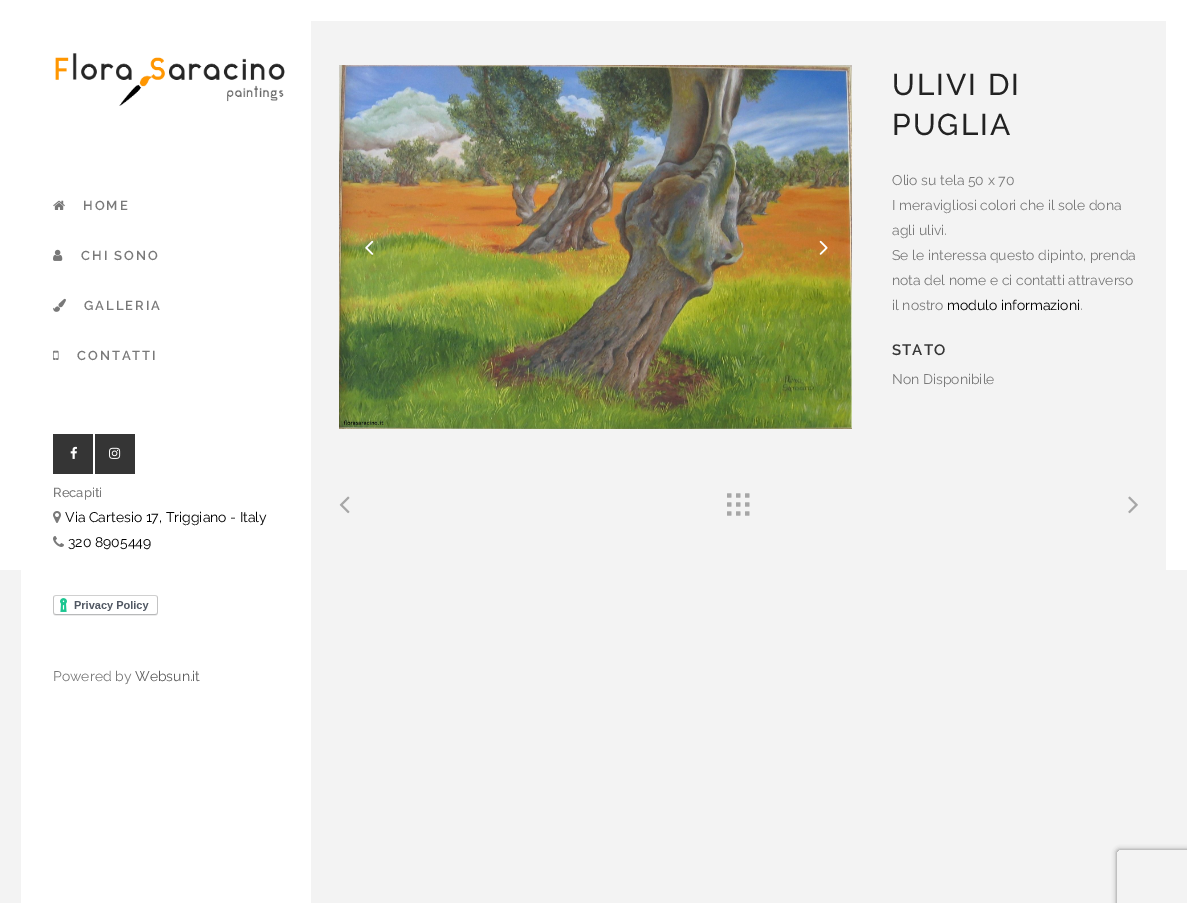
%!PS
<< /PageSize [1187 924] /PageUsesTransparency true >> setpagedevice
/rgb { 3 { 255 div 3 1 roll } repeat setrgbcolor } def
/font { [ exch dup neg 0 0 3 -1 roll 0 0 ] selectfont } def
/text { moveto show } def
/alpha { dup .setfillconstantalpha .setstrokeconstantalpha } def
/roundrect { 5 dict begin { /r /h /w /y /x } { exch def } forall
  x r add y moveto x w add y 2 copy h add r arct x w add y h add x 1 index r arct
  x y h add x y r arct x y 2 copy exch w add exch r arct closepath end } def
/shadow { 12 dict begin { /a /b /q /h /w /y /x } { exch def } forall gsave /was 0 def
  9 -2 -9 { dup b mul 4 div /e exch def 1 sub .425 mul 2.718 exch exp 1 add a .99 .min exch div /now exch def
    1 1 now sub 1 was sub div sub alpha /was now def
    w h .min e 2 mul add 0 gt { x e sub y e sub w e 2 mul add h e 2 mul add
      q e add b .6 mul add w h .min 2 div e add .min 0 .max roundrect fill } if } for grestore end } def
/picture { 5 dict begin { /h /w /y /x /name } { exch def } forall
  gsave x y translate w h scale
  w h 8 [w 0 0 h 0 0] name (r) file false 3 colorimage grestore end } def
0 .pushpdf14devicefilter
0 924 translate 1 -1 scale
4 setmiterlimit
243 243 243 rgb
0 0 1187 924 rectfill
255 255 255 rgb
21 570 290 333 rectfill
0 0 1187 570 rectfill
(img_01.rgb) 55 53 230 53 picture
(img_02.rgb) 53 200 12 10 picture
(img_03.rgb) 53 249 10 12 picture
(img_04.rgb) 53 298 13 14 picture
(img_05.rgb) 53 350 6 10 picture
53 53 53 rgb
53 434 40 40 rectfill
(img_06.rgb) 70 446 7 13 picture
95 434 40 40 rectfill
(img_07.rgb) 109 447 12 12 picture
(img_08.rgb) 53 511 8 12 picture
(img_09.rgb) 53 536 11 11 picture
(img_10.rgb) 53 595 105 21 picture
243 243 243 rgb
311 21 855 549 rectfill
(img_11.rgb) 339 65 513 364 picture
(img_12.rgb) 365 240 9 15 picture
(img_13.rgb) 819 240 9 15 picture
(img_14.rgb) 339 496 11 18 picture
(img_15.rgb) 727 493 23 23 picture
(img_16.rgb) 1128 496 10 18 picture
gsave
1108 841 moveto 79 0 rlineto 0 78 rlineto -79 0 rlineto closepath 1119 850 moveto 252 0 rlineto 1 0 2 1 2 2 rcurveto 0 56 rlineto 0 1 -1 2 -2 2 rcurveto -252 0 rlineto -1 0 -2 -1 -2 -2 rcurveto 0 -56 rlineto 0 -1 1 -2 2 -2 rcurveto closepath eoclip newpath
128 128 128 rgb
1117 850 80 60 2 2.5 1 shadow
grestore
255 255 255 rgb
0 903 1187 21 rectfill
/Raleway-SemiBold 13 font
121 121 121 rgb
83 210 moveto 2 0 (HOME) ashow
81 260 moveto 2 0 (CHI SONO) ashow
84 310 moveto 2 0 (GALLERIA) ashow
77 360 moveto 2 0 (CONTATTI) ashow
/Raleway-Medium 13 font
(Recapiti) 53 497 text
/Raleway-Regular 14 font
0 0 0 rgb
(Via Cartesio 17, Triggiano - Italy) 65 522 text
(320 8905449) 68 547 text
121 121 121 rgb
(Powered by) 53 681 text
93 93 93 rgb
(Websun.it) 135 681 text
/Raleway-Medium 30 font
34 34 34 rgb
892 95 moveto 2 0 (ULIVI DI) ashow
892 135 moveto 2 0 (PUGLIA) ashow
/Raleway-Regular 14 font
121 121 121 rgb
(Olio su tela 50 x 70) 892 185 text
(I meravigliosi colori che il sole dona) 892 210 text
(agli ulivi.) 892 235 text
(Se le interessa questo dipinto, prenda) 892 260 text
(nota del nome e ci contatti attraverso) 892 285 text
(il nostro) 892 310 text
0 0 0 rgb
(modulo informazioni) 947 310 text
121 121 121 rgb
(.) 1080 310 text
/Raleway-SemiBold 15 font
54 54 54 rgb
892 355 moveto 1 0 (STATO) ashow
/Raleway-Regular 14 font
121 121 121 rgb
(Non Disponibile) 892 384 text
.poppdf14devicefilter showpage
